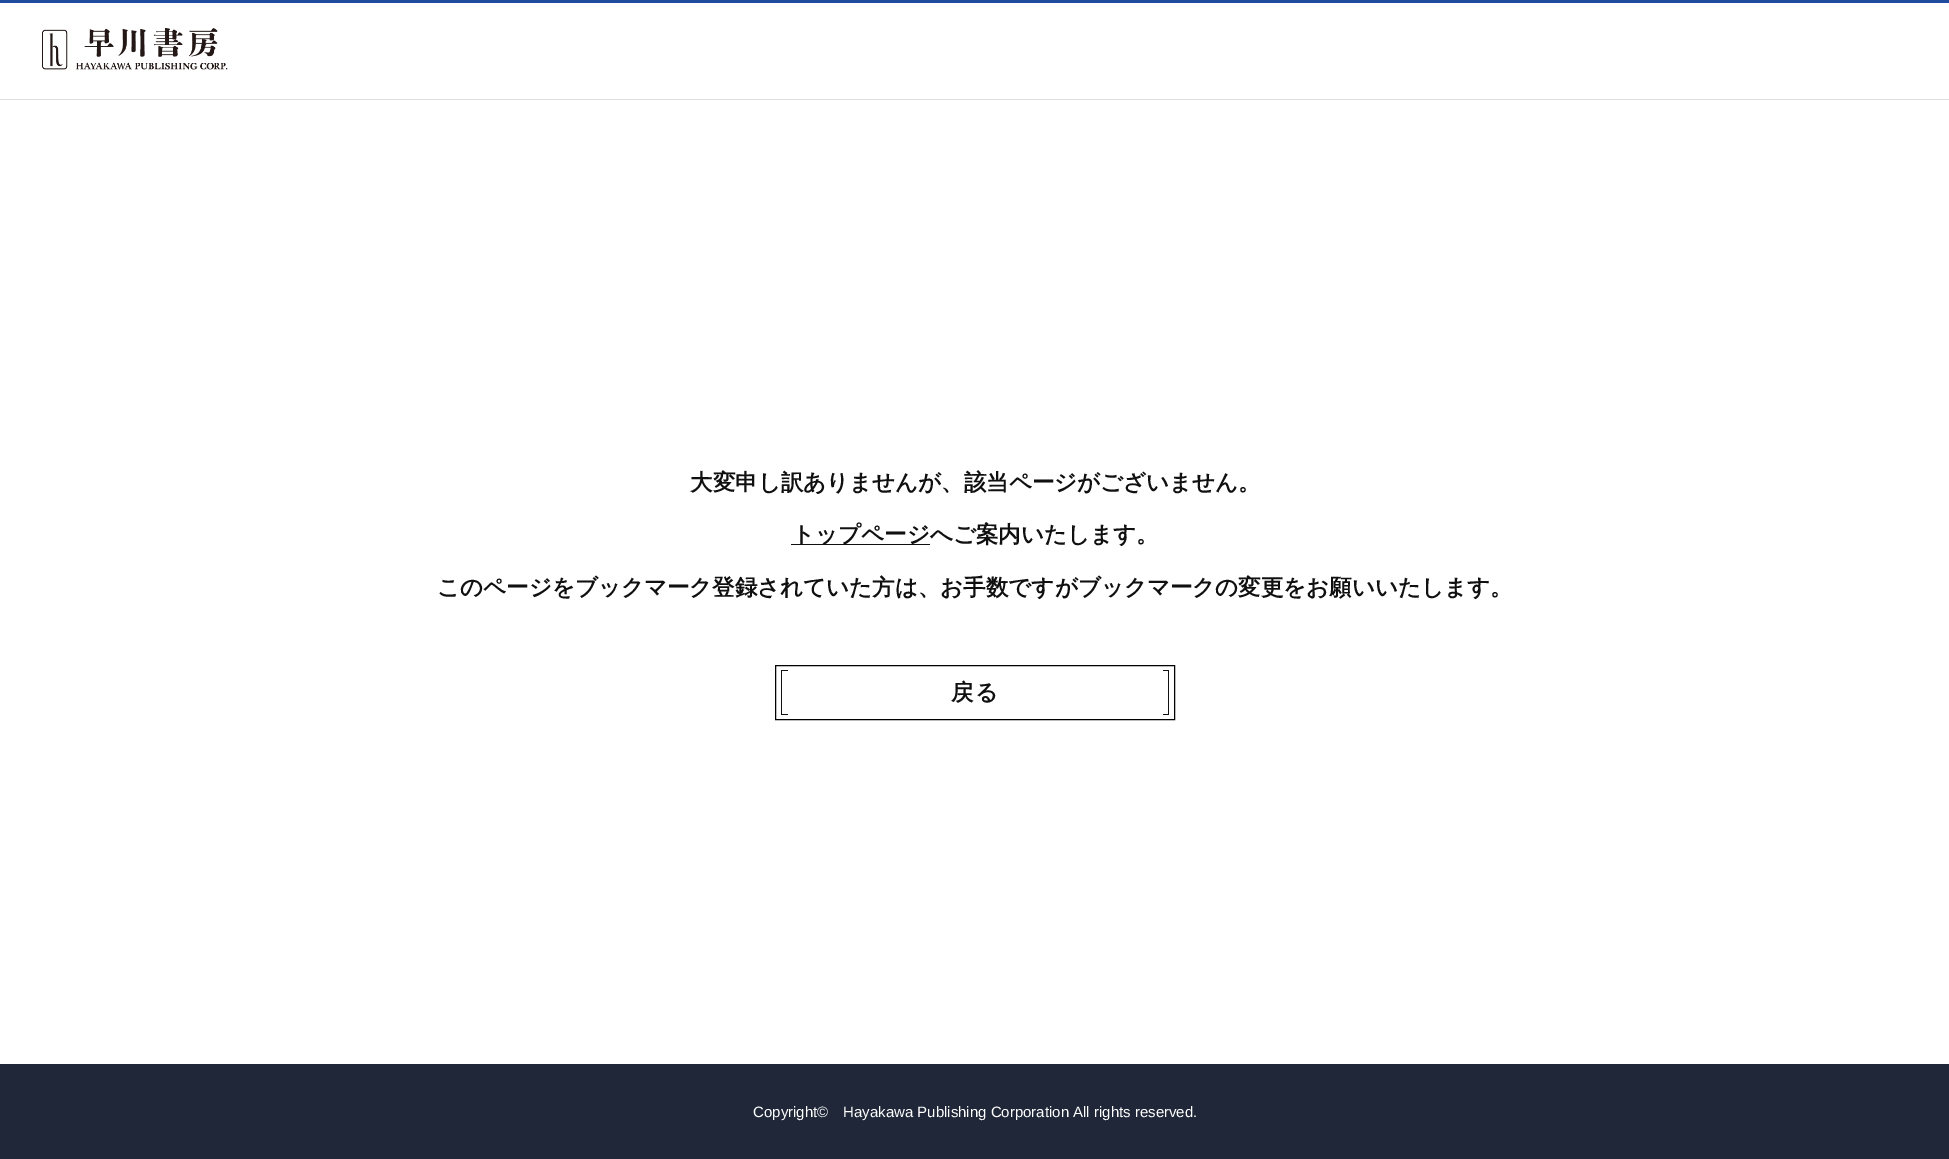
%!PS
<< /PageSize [1949 1159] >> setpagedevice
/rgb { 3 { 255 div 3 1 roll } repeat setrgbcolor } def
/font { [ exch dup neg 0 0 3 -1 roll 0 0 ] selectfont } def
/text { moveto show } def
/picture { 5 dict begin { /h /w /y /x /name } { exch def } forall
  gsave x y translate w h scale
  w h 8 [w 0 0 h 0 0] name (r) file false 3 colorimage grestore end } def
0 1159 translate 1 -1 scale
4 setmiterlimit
255 255 255 rgb
0 0 1949 1159 rectfill
32 75 159 rgb
0 0 1949 3 rectfill
222 222 222 rgb
0 99 1949 1 rectfill
(img_01.rgb) 42 28 186 42 picture
16 16 16 rgb
791 544 139 1 rectfill
0 0 0 rgb
775.5 665.5 399 54 rectstroke
17 17 17 rgb
781 670 7 1 rectfill
781 714 7 1 rectfill
781 670 1 45 rectfill
1163 670 6 1 rectfill
1168 670 1 45 rectfill
1163 714 6 1 rectfill
31 39 56 rgb
0 1064 1949 95 rectfill
/WenQuanYiZenHei-Bold 22.5 font
16 16 16 rgb
(大変申し訳ありませんが、該当ページがございません。) 690 490 text
(トップページへご案内いたします。) 792 542 text
(このページをブックマーク登録されていた方は、お手数ですがブックマークの変更をお願いいたします。) 437 595 text
951 700 moveto 1 0 (戻る) ashow
/LiberationSans-Regular 15 font
255 255 255 rgb
(Copyright©) 753 1117 text
(Hayakawa Publishing Corporation All rights reserved.) 843 1117 text
showpage
